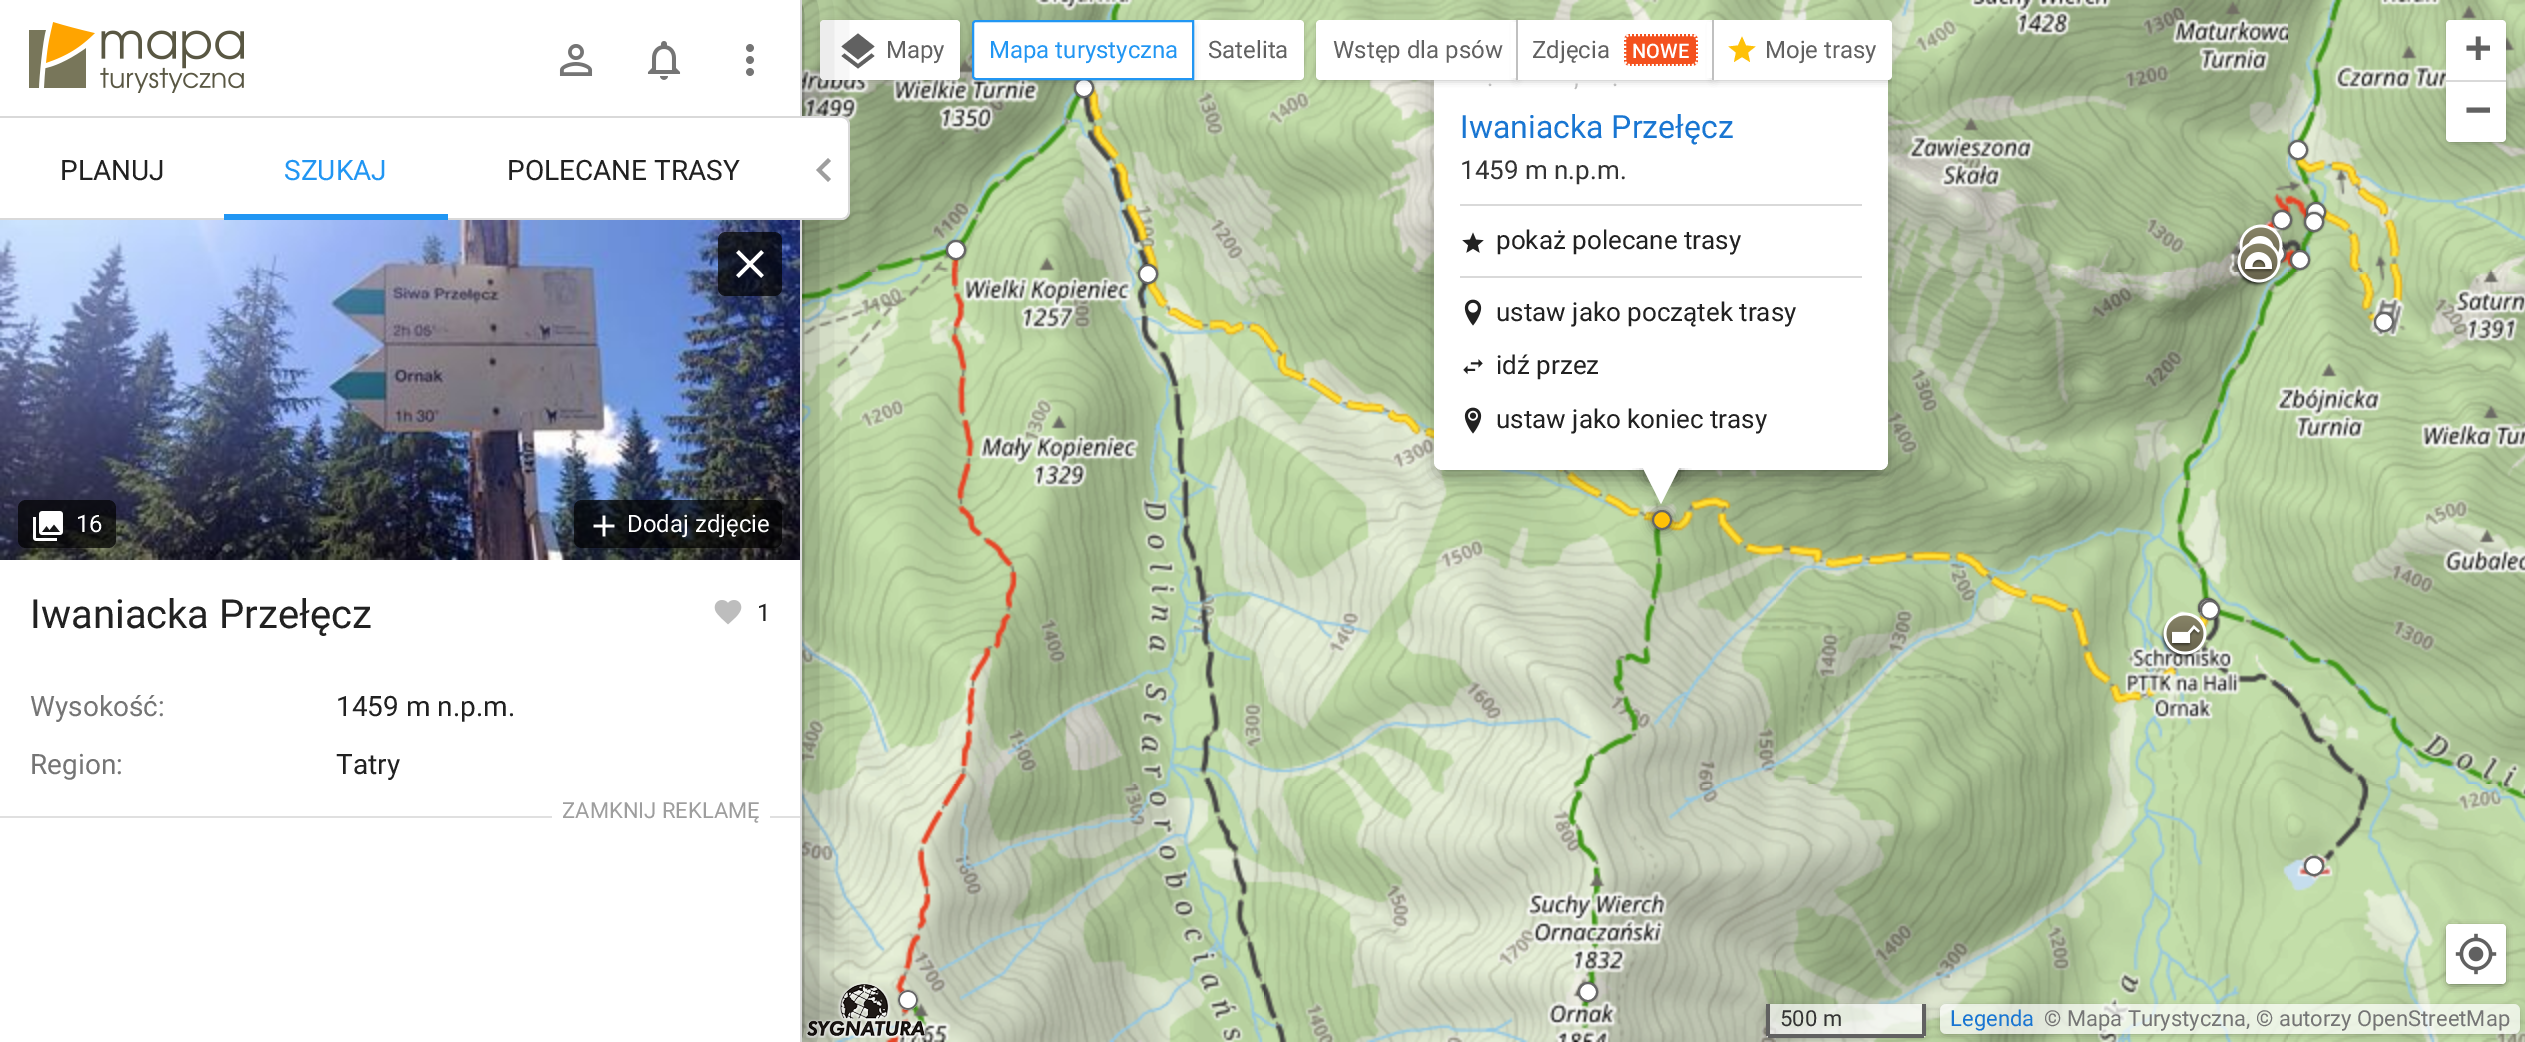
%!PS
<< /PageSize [2525 1042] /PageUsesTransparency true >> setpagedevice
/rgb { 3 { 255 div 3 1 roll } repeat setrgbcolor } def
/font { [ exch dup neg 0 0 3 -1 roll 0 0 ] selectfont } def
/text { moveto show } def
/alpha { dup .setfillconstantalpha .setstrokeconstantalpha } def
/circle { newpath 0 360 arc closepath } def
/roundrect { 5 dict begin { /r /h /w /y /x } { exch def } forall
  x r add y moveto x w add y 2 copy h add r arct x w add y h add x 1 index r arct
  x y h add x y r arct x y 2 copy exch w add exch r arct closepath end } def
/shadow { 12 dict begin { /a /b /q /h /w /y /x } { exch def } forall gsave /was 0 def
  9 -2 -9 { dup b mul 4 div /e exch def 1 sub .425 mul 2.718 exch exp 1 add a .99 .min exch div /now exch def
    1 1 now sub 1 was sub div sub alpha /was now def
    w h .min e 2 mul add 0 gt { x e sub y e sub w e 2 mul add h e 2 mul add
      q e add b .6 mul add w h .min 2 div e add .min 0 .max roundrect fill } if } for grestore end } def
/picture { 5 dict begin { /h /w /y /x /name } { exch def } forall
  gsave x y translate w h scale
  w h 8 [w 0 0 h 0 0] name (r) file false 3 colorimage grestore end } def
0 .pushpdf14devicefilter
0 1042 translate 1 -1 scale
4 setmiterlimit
255 255 255 rgb
0 0 2525 1042 rectfill
(img_12.rgb) 802 0 462 272 picture
0 0 0 rgb
822 24 136 56 2 4 0.3 shadow
255 255 255 rgb
820 20 140 60 4 roundrect fill
97 97 97 rgb
858 59.5 moveto -16.5 -13 rlineto 16.5 -13 rlineto 16.5 13 rlineto closepath 858 64 moveto 13.5 -10.5 rlineto 3 2.5 rlineto -16.5 12.5 rlineto -16.5 -12.5 rlineto 3 -2.5 rlineto closepath fill
(img_20.rgb) 802 784 462 258 picture
0 0 0 rgb
898 990 20 20 10 1 0.5 shadow
255 255 255 rgb
908 1000 9 circle gsave fill grestore
102 102 102 rgb
2 setlinewidth
stroke
(img_10.rgb) 806 982 122 56 picture
(img_16.rgb) 802 272 462 512 picture
0 0 0 rgb
-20 0 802 1042 0 30 1 shadow
255 255 255 rgb
0 0 800 1042 rectfill
217 217 217 rgb
800 0 2 1042 rectfill
0 116 800 2 rectfill
(img_01.rgb) 29 22 215 71 picture
(img_02.rgb) 559 44 34 32 picture
(img_03.rgb) 647 41 34 39 picture
(img_04.rgb) 746 44 8 32 picture
0 218 800 2 rectfill
33 150 243 rgb
224 214 224 6 rectfill
(img_06.rgb) 0 220 800 340 picture
0.7 alpha
0 0 0 rgb
718 232 64 64 8 roundrect fill
1 alpha
(img_05.rgb) 736 250 28 28 picture
0.7 alpha
18 500 98 48 8 roundrect fill
1 alpha
(img_07.rgb) 33 511 30 30 picture
0.7 alpha
574 500 208 48 8 roundrect fill
1 alpha
(img_08.rgb) 593 515 22 22 picture
(img_09.rgb) 714 600 28 25 picture
255 255 255 rgb
800 118 moveto 42 0 rlineto 3.5 0 6 2.5 6 6 rcurveto 0 88 rlineto 0 3.5 -2.5 6 -6 6 rcurveto -42 0 rlineto closepath fill
217 217 217 rgb
800 116 moveto 42 0 rlineto 4 0 8 4 8 8 rcurveto 0 88 rlineto 0 4 -4 8 -8 8 rcurveto -42 0 rlineto closepath 800 118 moveto 42 0 rlineto 3 0 6 3 6 6 rcurveto 0 88 rlineto 0 3 -3 6 -6 6 rcurveto -42 0 rlineto closepath eofill
158 158 158 rgb
831 161 moveto -9.5 9 rlineto 9.5 9 rlineto -3 3 rlineto -12 -12 rlineto 12 -12 rlineto closepath fill
224 224 224 rgb
0 816 800 2 rectfill
255 255 255 rgb
552 816 218 2 rectfill
(img_13.rgb) 1264 0 512 272 picture
gsave
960 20 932 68 rectclip
0 0 0 rgb
1194 24 108 56 2 4 0.3 shadow
grestore
1192 20 moveto 108 0 rlineto 2 0 4 2 4 4 rcurveto 0 52 rlineto 0 2 -2 4 -4 4 rcurveto -108 0 rlineto closepath fill
0 0 0 rgb
1074 78 20 20 10 1 0.5 shadow
255 255 255 rgb
1084 88 9 circle gsave fill grestore
102 102 102 rgb
stroke
gsave
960 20 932 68 rectclip
0 0 0 rgb
974 24 218 56 2 4 0.3 shadow
grestore
255 255 255 rgb
976 21 moveto 217 0 rlineto 0 58 rlineto -217 0 rlineto -1.5 0 -3 -1.5 -3 -3 rcurveto 0 -52 rlineto 0 -1.5 1.5 -3 3 -3 rcurveto closepath gsave fill grestore
33 150 243 rgb
stroke
(img_14.rgb) 1776 0 512 272 picture
(img_17.rgb) 1264 272 512 512 picture
(img_18.rgb) 1776 272 512 512 picture
0 0 0 rgb
1438 54 446 420 4 10 0.4 shadow
255 255 255 rgb
1434 42 454 428 8 roundrect fill
gsave
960 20 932 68 rectclip
0 0 0 rgb
1318 24 198 56 2 4 0.3 shadow
grestore
1320 20 moveto 198 0 rlineto 0 60 rlineto -198 0 rlineto -2 0 -4 -2 -4 -4 rcurveto 0 -52 rlineto 0 -2 2 -4 4 -4 rcurveto closepath fill
gsave
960 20 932 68 rectclip
0 0 0 rgb
1518 24 194 56 0 4 0.3 shadow
grestore
1511 22 5 56 rectfill
192 192 192 rgb
1516 20 2 60 rectfill
255 255 255 rgb
1518 20 194 60 rectfill
244 81 30 rgb
1624 34 74 32 6 roundrect fill
255 255 255 rgb
[2 2] 0 setdash
1630 35 moveto 62 0 rlineto 3 0 5 2 5 5 rcurveto 0 20 rlineto 0 3 -2 5 -5 5 rcurveto -62 0 rlineto -3 0 -5 -2 -5 -5 rcurveto 0 -20 rlineto 0 -3 2 -5 5 -5 rcurveto closepath stroke
gsave
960 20 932 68 rectclip
0 0 0 rgb
1714 24 176 56 2 4 0.3 shadow
grestore
1707 22 5 56 rectfill
1712 20 moveto 176 0 rlineto 2 0 4 2 4 4 rcurveto 0 52 rlineto 0 2 -2 4 -4 4 rcurveto -176 0 rlineto closepath fill
192 192 192 rgb
1712 20 2 60 rectfill
255 193 7 rgb
1742 57 moveto -8 5 rlineto 2 -9.5 rlineto -7.5 -6 rlineto 9.5 -1 rlineto 4 -9 rlineto 4 9 rlineto 9.5 1 rlineto -7.5 6 rlineto 2 9.5 rlineto closepath fill
(img_15.rgb) 2288 0 237 272 picture
0 0 0 rgb
2448 24 56 118 2 4 0.3 shadow
255 255 255 rgb
2450 20 moveto 52 0 rlineto 2 0 4 2 4 4 rcurveto 0 58 rlineto -60 0 rlineto 0 -58 rlineto 0 -2 2 -4 4 -4 rcurveto closepath fill
217 217 217 rgb
2446 80 60 2 rectfill
255 255 255 rgb
2446 82 moveto 60 0 rlineto 0 56 rlineto 0 2 -2 4 -4 4 rcurveto -52 0 rlineto -2 0 -4 -2 -4 -4 rcurveto closepath fill
(img_23.rgb) 2288 784 237 258 picture
0 0 0 rgb
2448 928 56 56 2 4 0.3 shadow
2448 928 56 56 2 4 0.3 shadow
255 255 255 rgb
2446 924 60 60 4 roundrect fill
(img_11.rgb) 2455 933 42 42 picture
(img_21.rgb) 1264 784 512 258 picture
(img_22.rgb) 1776 784 512 258 picture
gsave
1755 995 moveto 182 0 rlineto 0 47 rlineto -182 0 rlineto closepath 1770 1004 moveto 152 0 rlineto 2 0 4 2 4 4 rcurveto 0 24 rlineto 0 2 -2 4 -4 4 rcurveto -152 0 rlineto -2 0 -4 -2 -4 -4 rcurveto 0 -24 rlineto 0 -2 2 -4 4 -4 rcurveto closepath eoclip newpath
0 0 0 rgb
1768 1008 156 28 2 4 0.3 shadow
grestore
0.7 alpha
1766 1004 moveto 160 0 rlineto 0 30 rlineto 0 2 -2 4 -4 4 rcurveto -152 0 rlineto -2 0 -4 -2 -4 -4 rcurveto closepath fill
1 alpha
97 97 97 rgb
1922 1004 4 32 rectfill
1768 1034 156 4 rectfill
1766 1004 4 32 rectfill
gsave
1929 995 moveto 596 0 rlineto 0 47 rlineto -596 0 rlineto closepath 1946 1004 moveto 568 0 rlineto 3.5 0 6 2.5 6 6 rcurveto 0 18 rlineto 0 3.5 -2.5 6 -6 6 rcurveto -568 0 rlineto -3.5 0 -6 -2.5 -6 -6 rcurveto 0 -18 rlineto 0 -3.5 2.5 -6 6 -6 rcurveto closepath eoclip newpath
0 0 0 rgb
1942 1008 576 26 4 4 0.3 shadow
grestore
0.7 alpha
255 255 255 rgb
1940 1004 580 30 6 roundrect fill
1 alpha
(img_19.rgb) 2288 272 237 512 picture
0 0 0 rgb
2288 140 20 20 10 1 0.5 shadow
255 255 255 rgb
2298 150 9 circle gsave fill grestore
102 102 102 rgb
[] 0 setdash
stroke
0 0 0 rgb
2272 210 20 20 10 1 0.5 shadow
255 255 255 rgb
2282 220 9 circle gsave fill grestore
102 102 102 rgb
stroke
0 0 0 rgb
2306 202 20 20 10 1 0.5 shadow
255 255 255 rgb
2316 212 9 circle gsave fill grestore
102 102 102 rgb
stroke
0 0 0 rgb
946 240 20 20 10 1 0.5 shadow
255 255 255 rgb
956 250 9 circle gsave fill grestore
102 102 102 rgb
stroke
0 0 0 rgb
2266 244 20 20 10 1 0.5 shadow
255 255 255 rgb
2276 254 9 circle gsave fill grestore
102 102 102 rgb
stroke
(img_24.rgb) 2236 224 47 33 picture
0 0 0 rgb
2304 212 20 20 10 1 0.5 shadow
255 255 255 rgb
2314 222 9 circle gsave fill grestore
102 102 102 rgb
stroke
0 0 0 rgb
1138 264 20 20 10 1 0.5 shadow
255 255 255 rgb
1148 274 9 circle gsave fill grestore
102 102 102 rgb
stroke
(img_25.rgb) 2234 243 47 44 picture
0 0 0 rgb
2290 250 20 20 10 1 0.5 shadow
255 255 255 rgb
2300 260 9 circle gsave fill grestore
102 102 102 rgb
stroke
0 0 0 rgb
2374 312 20 20 10 1 0.5 shadow
255 255 255 rgb
2384 322 9 circle gsave fill grestore
102 102 102 rgb
stroke
0 0 0 rgb
1652 510 20 20 10 6 0.5 shadow
255 193 7 rgb
1662 520 9 circle gsave fill grestore
102 102 102 rgb
stroke
0 0 0 rgb
2198 598 20 20 10 1 0.5 shadow
255 255 255 rgb
2208 608 9 circle gsave fill grestore
102 102 102 rgb
stroke
0 0 0 rgb
2200 600 20 20 10 1 0.5 shadow
255 255 255 rgb
2210 610 9 circle gsave fill grestore
102 102 102 rgb
stroke
(img_26.rgb) 2160 612 47 47 picture
0 0 0 rgb
2304 856 20 20 10 1 0.5 shadow
255 255 255 rgb
2314 866 9 circle gsave fill grestore
102 102 102 rgb
stroke
0 0 0 rgb
1578 982 20 20 10 1 0.5 shadow
255 255 255 rgb
1588 992 9 circle gsave fill grestore
102 102 102 rgb
stroke
217 217 217 rgb
1460 204 402 2 rectfill
(img_27.rgb) 1462 232 22 21 picture
1460 276 402 2 rectfill
(img_28.rgb) 1464 299 18 27 picture
(img_29.rgb) 1463 359 20 16 picture
(img_30.rgb) 1464 407 18 27 picture
gsave
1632 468 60 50 rectclip
0 0 0 rgb
1648 450 28 28 0 7 0.7 shadow
grestore
gsave
1632 468 60 50 rectclip
255 255 255 rgb
1661 424 moveto 20 40 rlineto -20 40 rlineto -20 -40 rlineto closepath fill
grestore
/Roboto-Regular 28 font
33 33 33 rgb
(PLANUJ) 60 180 text
33 150 243 rgb
(SZUKAJ) 284 180 text
33 33 33 rgb
(POLECANE TRASY) 507 180 text
/Roboto-Regular 24 font
255 255 255 rgb
(16) 76 532 text
(Dodaj zdjęcie) 627 532 text
/Roboto-Regular 40 font
33 33 33 rgb
(Iwaniacka Przełęcz) 30 628 text
/Roboto-Regular 24 font
(1) 757 621 text
/Roboto-Regular 28 font
117 117 117 rgb
(Wysokość:) 30 716 text
33 33 33 rgb
(1459 m n.p.m.) 336 716 text
117 117 117 rgb
(Region:) 30 774 text
33 33 33 rgb
(Tatry) 336 774 text
/Roboto-Regular 22 font
158 158 158 rgb
(ZAMKNIJ REKLAMĘ) 562 818 text
/Roboto-Regular 24 font
97 97 97 rgb
(Mapy) 886 58 text
33 150 243 rgb
(Mapa turystyczna) 989 58 text
97 97 97 rgb
(Satelita) 1208 58 text
(Wstęp dla psów) 1333 58 text
(Zdjęcia) 1532 58 text
/Roboto-Medium 20 font
255 255 255 rgb
(NOWE) 1632 58 text
/Roboto-Regular 24 font
97 97 97 rgb
(Moje trasy) 1765 58 text
/DejaVuSansMono-Bold 44 font
(+) 2465 62 text
(−) 2465 124 text
/Roboto-Regular 22 font
51 51 51 rgb
(500 m) 1780 1026 text
25 118 210 rgb
(Legenda) 1950 1026 text
117 117 117 rgb
(© Mapa Turystyczna, © autorzy OpenStreetMap) 2044 1026 text
/Roboto-Regular 24 font
189 189 189 rgb
(.) 1487 86 text
(,) 1574 86 text
(.) 1612 86 text
/Roboto-Regular 32 font
25 118 210 rgb
(Iwaniacka Przełęcz) 1460 138 text
/Roboto-Regular 26 font
51 51 51 rgb
(1459 m n.p.m.) 1460 179 text
33 33 33 rgb
(pokaż polecane trasy) 1496 249 text
(ustaw jako początek trasy) 1496 321 text
(idź przez) 1496 374 text
(ustaw jako koniec trasy) 1496 428 text
.poppdf14devicefilter showpage
